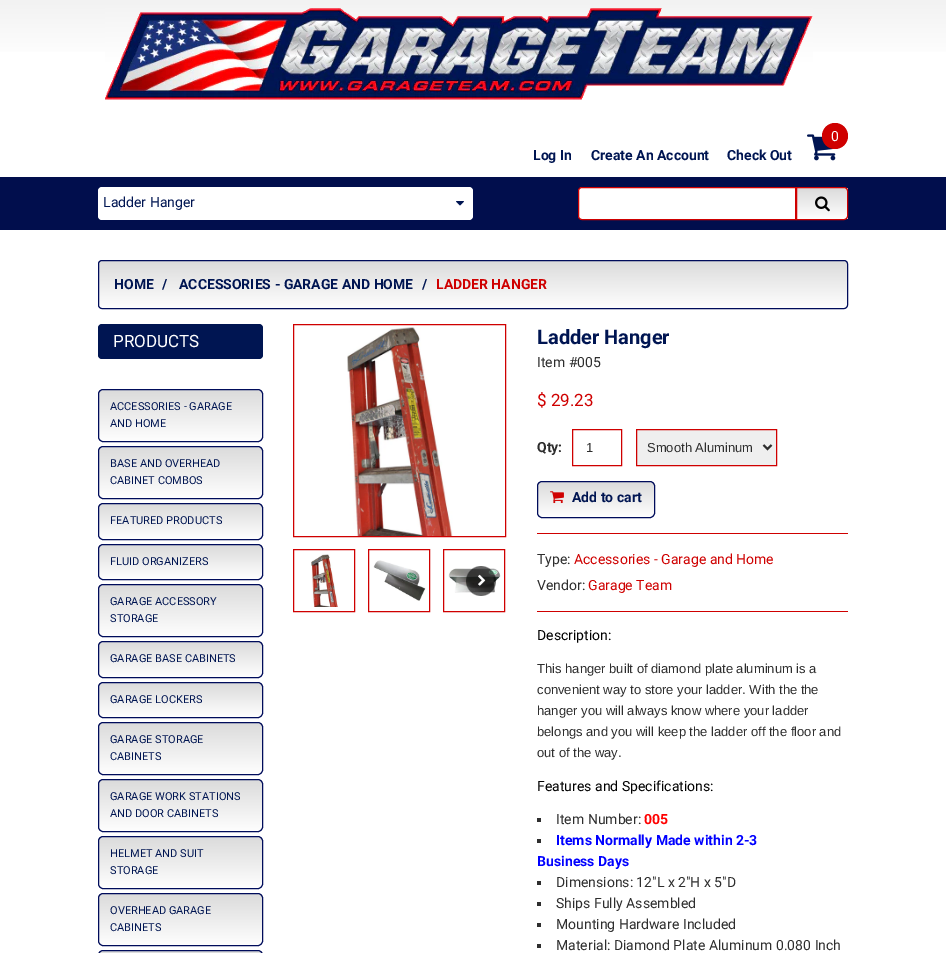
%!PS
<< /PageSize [946 953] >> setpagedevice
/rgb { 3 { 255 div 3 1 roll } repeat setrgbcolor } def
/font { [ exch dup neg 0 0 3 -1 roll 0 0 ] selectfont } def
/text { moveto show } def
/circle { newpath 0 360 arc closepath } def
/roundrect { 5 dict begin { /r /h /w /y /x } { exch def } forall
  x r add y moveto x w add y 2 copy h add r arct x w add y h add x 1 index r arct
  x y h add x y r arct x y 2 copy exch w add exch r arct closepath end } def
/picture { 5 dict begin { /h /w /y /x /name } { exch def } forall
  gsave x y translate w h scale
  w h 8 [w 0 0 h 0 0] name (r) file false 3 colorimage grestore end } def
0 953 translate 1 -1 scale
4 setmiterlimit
255 255 255 rgb
0 0 946 953 rectfill
gsave 0 0 moveto 946 0 rlineto 0 52 rlineto -946 0 rlineto closepath clip newpath
<< /ShadingType 2 /ColorSpace /DeviceRGB /Coords [473 0 473 64] /Extend [true true] /Function << /FunctionType 2 /Domain [0 1] /C0 [0.949 0.949 0.949] /C1 [1 1 1] /N 1 >> >> shfill grestore
(img_01.rgb) 105 8 708 92 picture
(img_02.rgb) 807 134 31 27 picture
207 0 0 rgb
835 136 13 circle fill
1 14 77 rgb
0 177 946 53 rectfill
255 255 255 rgb
98 187 375 33 4 roundrect fill
(img_03.rgb) 456 201 8 5 picture
582 187.5 moveto 213.5 0 rlineto 0 32 rlineto -213.5 0 rlineto -2 0 -3.5 -1.5 -3.5 -3.5 rcurveto 0 -25 rlineto 0 -2 1.5 -3.5 3.5 -3.5 rcurveto closepath gsave fill grestore
207 0 0 rgb
stroke
gsave
796 187 moveto 48 0 rlineto 2 0 4 2 4 4 rcurveto 0 25 rlineto 0 2 -2 4 -4 4 rcurveto -48 0 rlineto closepath clip newpath
gsave 797 188 moveto 51 0 rlineto 0 31 rlineto -51 0 rlineto closepath clip newpath
<< /ShadingType 2 /ColorSpace /DeviceRGB /Coords [822 188 822 219] /Extend [true true] /Function << /FunctionType 2 /Domain [0 1] /C0 [0.859 0.859 0.859] /C1 [0.996 0.996 0.996] /N 1 >> >> shfill grestore
grestore
796.5 187.5 moveto 47.5 0 rlineto 2 0 3.5 1.5 3.5 3.5 rcurveto 0 25 rlineto 0 2 -1.5 3.5 -3.5 3.5 rcurveto -47.5 0 rlineto closepath stroke
(img_04.rgb) 815 196 15 16 picture
gsave
98 260 750 49 4 roundrect clip newpath
gsave 98 261 moveto 750 0 rlineto 0 47 rlineto -750 0 rlineto closepath clip newpath
<< /ShadingType 2 /ColorSpace /DeviceRGB /Coords [473 261 473 308] /Extend [true true] /Function << /FunctionType 2 /Domain [0 1] /C0 [0.859 0.859 0.859] /C1 [0.996 0.996 0.996] /N 1 >> >> shfill grestore
grestore
0 12 91 rgb
98.5 260.5 749 48 3.5 roundrect stroke
0 21 82 rgb
98 324 165 35 4 roundrect fill
gsave
98 389 165 53 5 roundrect clip newpath
gsave 98 390 moveto 165 0 rlineto 0 51 rlineto -165 0 rlineto closepath clip newpath
<< /ShadingType 2 /ColorSpace /DeviceRGB /Coords [181 390 181 441] /Extend [true true] /Function << /FunctionType 2 /Domain [0 1] /C0 [0.859 0.859 0.859] /C1 [0.996 0.996 0.996] /N 1 >> >> shfill grestore
grestore
0 12 91 rgb
98.5 389.5 164 52 4.5 roundrect stroke
gsave
98 446 165 53 5 roundrect clip newpath
gsave 98 447 moveto 165 0 rlineto 0 51 rlineto -165 0 rlineto closepath clip newpath
<< /ShadingType 2 /ColorSpace /DeviceRGB /Coords [181 447 181 498] /Extend [true true] /Function << /FunctionType 2 /Domain [0 1] /C0 [0.859 0.859 0.859] /C1 [0.996 0.996 0.996] /N 1 >> >> shfill grestore
grestore
98.5 446.5 164 52 4.5 roundrect stroke
gsave
98 503 165 37 5 roundrect clip newpath
gsave 98 504 moveto 165 0 rlineto 0 35 rlineto -165 0 rlineto closepath clip newpath
<< /ShadingType 2 /ColorSpace /DeviceRGB /Coords [181 504 181 539] /Extend [true true] /Function << /FunctionType 2 /Domain [0 1] /C0 [0.859 0.859 0.859] /C1 [0.996 0.996 0.996] /N 1 >> >> shfill grestore
grestore
98.5 503.5 164 36 4.5 roundrect stroke
gsave
98 544 165 36 5 roundrect clip newpath
gsave 98 545 moveto 165 0 rlineto 0 34 rlineto -165 0 rlineto closepath clip newpath
<< /ShadingType 2 /ColorSpace /DeviceRGB /Coords [181 545 181 579] /Extend [true true] /Function << /FunctionType 2 /Domain [0 1] /C0 [0.859 0.859 0.859] /C1 [0.996 0.996 0.996] /N 1 >> >> shfill grestore
grestore
98.5 544.5 164 35 4.5 roundrect stroke
gsave
98 584 165 53 5 roundrect clip newpath
gsave 98 585 moveto 165 0 rlineto 0 51 rlineto -165 0 rlineto closepath clip newpath
<< /ShadingType 2 /ColorSpace /DeviceRGB /Coords [181 585 181 636] /Extend [true true] /Function << /FunctionType 2 /Domain [0 1] /C0 [0.859 0.859 0.859] /C1 [0.996 0.996 0.996] /N 1 >> >> shfill grestore
grestore
98.5 584.5 164 52 4.5 roundrect stroke
gsave
98 641 165 37 5 roundrect clip newpath
gsave 98 642 moveto 165 0 rlineto 0 35 rlineto -165 0 rlineto closepath clip newpath
<< /ShadingType 2 /ColorSpace /DeviceRGB /Coords [181 642 181 677] /Extend [true true] /Function << /FunctionType 2 /Domain [0 1] /C0 [0.859 0.859 0.859] /C1 [0.996 0.996 0.996] /N 1 >> >> shfill grestore
grestore
98.5 641.5 164 36 4.5 roundrect stroke
gsave
98 682 165 36 5 roundrect clip newpath
gsave 98 683 moveto 165 0 rlineto 0 34 rlineto -165 0 rlineto closepath clip newpath
<< /ShadingType 2 /ColorSpace /DeviceRGB /Coords [181 683 181 717] /Extend [true true] /Function << /FunctionType 2 /Domain [0 1] /C0 [0.859 0.859 0.859] /C1 [0.996 0.996 0.996] /N 1 >> >> shfill grestore
grestore
98.5 682.5 164 35 4.5 roundrect stroke
gsave
98 722 165 53 5 roundrect clip newpath
gsave 98 723 moveto 165 0 rlineto 0 51 rlineto -165 0 rlineto closepath clip newpath
<< /ShadingType 2 /ColorSpace /DeviceRGB /Coords [181 723 181 774] /Extend [true true] /Function << /FunctionType 2 /Domain [0 1] /C0 [0.859 0.859 0.859] /C1 [0.996 0.996 0.996] /N 1 >> >> shfill grestore
grestore
98.5 722.5 164 52 4.5 roundrect stroke
gsave
98 779 165 53 5 roundrect clip newpath
gsave 98 780 moveto 165 0 rlineto 0 51 rlineto -165 0 rlineto closepath clip newpath
<< /ShadingType 2 /ColorSpace /DeviceRGB /Coords [181 780 181 831] /Extend [true true] /Function << /FunctionType 2 /Domain [0 1] /C0 [0.859 0.859 0.859] /C1 [0.996 0.996 0.996] /N 1 >> >> shfill grestore
grestore
98.5 779.5 164 52 4.5 roundrect stroke
gsave
98 836 165 53 5 roundrect clip newpath
gsave 98 837 moveto 165 0 rlineto 0 51 rlineto -165 0 rlineto closepath clip newpath
<< /ShadingType 2 /ColorSpace /DeviceRGB /Coords [181 837 181 888] /Extend [true true] /Function << /FunctionType 2 /Domain [0 1] /C0 [0.859 0.859 0.859] /C1 [0.996 0.996 0.996] /N 1 >> >> shfill grestore
grestore
98.5 836.5 164 52 4.5 roundrect stroke
gsave
98 893 165 53 5 roundrect clip newpath
gsave 98 894 moveto 165 0 rlineto 0 51 rlineto -165 0 rlineto closepath clip newpath
<< /ShadingType 2 /ColorSpace /DeviceRGB /Coords [181 894 181 945] /Extend [true true] /Function << /FunctionType 2 /Domain [0 1] /C0 [0.859 0.859 0.859] /C1 [0.996 0.996 0.996] /N 1 >> >> shfill grestore
grestore
98.5 893.5 164 52 4.5 roundrect stroke
gsave
98 950 165 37 5 roundrect clip newpath
gsave 98 951 moveto 165 0 rlineto 0 2 rlineto -165 0 rlineto closepath clip newpath
<< /ShadingType 2 /ColorSpace /DeviceRGB /Coords [181 951 181 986] /Extend [true true] /Function << /FunctionType 2 /Domain [0 1] /C0 [0.859 0.859 0.859] /C1 [0.996 0.996 0.996] /N 1 >> >> shfill grestore
grestore
98.5 950.5 164 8 4.5 roundrect stroke
207 0 0 rgb
293.5 324.5 212 212 rectstroke
(img_05.rgb) 347 327 106 209 picture
(img_06.rgb) 311 554 27 53 picture
293.5 549.5 61 62 rectstroke
(img_07.rgb) 373 560 53 41 picture
368.5 549.5 61 62 rectstroke
(img_08.rgb) 448 568 53 25 picture
443.5 549.5 61 62 rectstroke
(img_09.rgb) 466 566 30 30 picture
572.5 429.5 49 36 rectstroke
239 239 239 rgb
636.5 429.5 moveto 140 0 rlineto 0 36 rlineto -140 0 rlineto closepath gsave fill grestore
207 0 0 rgb
stroke
46 46 46 rgb
2 setlinewidth
763.5 445 moveto 4 4 rlineto 4 -4 rlineto stroke
gsave
537 481 118 37 5 roundrect clip newpath
gsave 537 482 moveto 118 0 rlineto 0 35 rlineto -118 0 rlineto closepath clip newpath
<< /ShadingType 2 /ColorSpace /DeviceRGB /Coords [596 482 596 517] /Extend [true true] /Function << /FunctionType 2 /Domain [0 1] /C0 [0.859 0.859 0.859] /C1 [0.996 0.996 0.996] /N 1 >> >> shfill grestore
grestore
0 12 91 rgb
1 setlinewidth
537.5 481.5 117 36 4.5 roundrect stroke
(img_10.rgb) 550 491 14 13 picture
207 0 0 rgb
537 533 311 1 rectfill
537 611 311 1 rectfill
46 46 46 rgb
537 818 4 4 rectfill
537 839 4 4 rectfill
537 881 4 4 rectfill
537 902 4 4 rectfill
537 923 4 4 rectfill
537 944 4 4 rectfill
/Roboto-Regular 14 font
255 255 255 rgb
(0) 831 141 text
/Roboto-Bold 14 font
0 21 82 rgb
(Log In) 533 160 text
(Create An Account) 591 160 text
(Check Out) 727 160 text
/Roboto-Regular 14 font
(Ladder Hanger) 103 207 text
/Roboto-Bold 14 font
(HOME) 114 289 text
(/) 162 289 text
(ACCESSORIES - GARAGE AND HOME) 179 289 text
(/) 422 289 text
207 0 0 rgb
(LADDER HANGER) 436 289 text
/Roboto-Regular 17 font
255 255 255 rgb
(PRODUCTS) 113 347 text
/Roboto-Regular 11 font
0 21 82 rgb
(ACCESSORIES - GARAGE) 110 410 text
(AND HOME) 110 427 text
(BASE AND OVERHEAD) 110 467 text
(CABINET COMBOS) 110 484 text
(FEATURED PRODUCTS) 110 524 text
(FLUID ORGANIZERS) 110 565 text
(GARAGE ACCESSORY) 110 605 text
(STORAGE) 110 622 text
(GARAGE BASE CABINETS) 110 662 text
(GARAGE LOCKERS) 110 703 text
(GARAGE STORAGE) 110 743 text
(CABINETS) 110 760 text
(GARAGE WORK STATIONS) 110 800 text
(AND DOOR CABINETS) 110 817 text
(HELMET AND SUIT) 110 857 text
(STORAGE) 110 874 text
(OVERHEAD GARAGE) 110 914 text
(CABINETS) 110 931 text
/Roboto-Bold 20 font
(Ladder Hanger) 537 344 text
/Roboto-Regular 14 font
46 46 46 rgb
(Item #005) 537 367 text
/Roboto-Regular 17 font
207 0 0 rgb
($ 29.23) 537 406 text
/Roboto-Bold 14 font
46 46 46 rgb
(Qty:) 537 452 text
/LiberationSans-Regular 13 font
(1) 586 452 text
(Smooth Aluminum) 647 452 text
/Roboto-Bold 14 font
0 21 82 rgb
(Add to cart) 572 502 text
/Roboto-Regular 14 font
46 46 46 rgb
(Type:) 537 564 text
207 0 0 rgb
(Accessories - Garage and Home) 574 564 text
46 46 46 rgb
(Vendor:) 537 590 text
207 0 0 rgb
(Garage Team) 588 590 text
0 0 0 rgb
(Description:) 537 640 text
/LiberationSans-Regular 13 font
46 46 46 rgb
(This hanger built of diamond plate aluminum is a) 537 673 text
(convenient way to store your ladder. With the the) 537 694 text
(hanger you will always know where your ladder) 537 715 text
(belongs and you will keep the ladder off the floor and) 537 736 text
(out of the way.) 537 757 text
/Roboto-Regular 14 font
0 0 0 rgb
(Features and Specifications:) 537 791 text
46 46 46 rgb
(Item Number:) 556 824 text
/Roboto-Bold 14 font
255 0 0 rgb
(005) 644 824 text
0 0 255 rgb
(Items Normally Made within 2-3) 556 845 text
(Business Days) 537 866 text
/Roboto-Regular 14 font
46 46 46 rgb
(Dimensions: 12"L x 2"H x 5"D) 556 887 text
(Ships Fully Assembled) 556 908 text
(Mounting Hardware Included) 556 929 text
(Material: Diamond Plate Aluminum 0.080 Inch) 556 950 text
showpage
